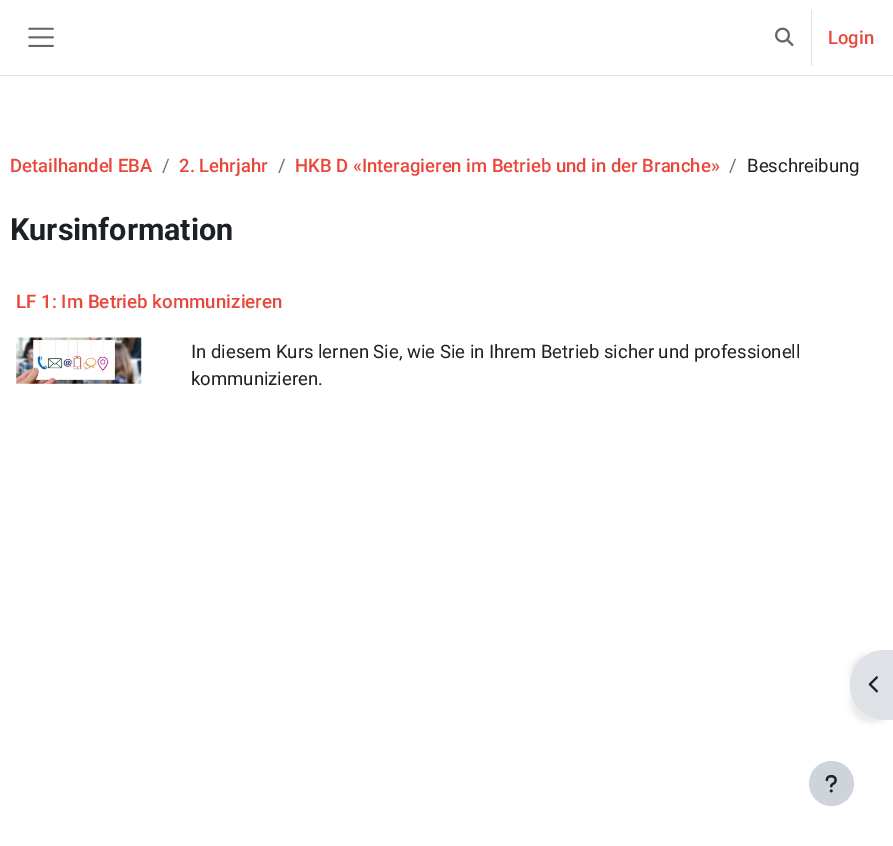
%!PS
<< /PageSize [893 846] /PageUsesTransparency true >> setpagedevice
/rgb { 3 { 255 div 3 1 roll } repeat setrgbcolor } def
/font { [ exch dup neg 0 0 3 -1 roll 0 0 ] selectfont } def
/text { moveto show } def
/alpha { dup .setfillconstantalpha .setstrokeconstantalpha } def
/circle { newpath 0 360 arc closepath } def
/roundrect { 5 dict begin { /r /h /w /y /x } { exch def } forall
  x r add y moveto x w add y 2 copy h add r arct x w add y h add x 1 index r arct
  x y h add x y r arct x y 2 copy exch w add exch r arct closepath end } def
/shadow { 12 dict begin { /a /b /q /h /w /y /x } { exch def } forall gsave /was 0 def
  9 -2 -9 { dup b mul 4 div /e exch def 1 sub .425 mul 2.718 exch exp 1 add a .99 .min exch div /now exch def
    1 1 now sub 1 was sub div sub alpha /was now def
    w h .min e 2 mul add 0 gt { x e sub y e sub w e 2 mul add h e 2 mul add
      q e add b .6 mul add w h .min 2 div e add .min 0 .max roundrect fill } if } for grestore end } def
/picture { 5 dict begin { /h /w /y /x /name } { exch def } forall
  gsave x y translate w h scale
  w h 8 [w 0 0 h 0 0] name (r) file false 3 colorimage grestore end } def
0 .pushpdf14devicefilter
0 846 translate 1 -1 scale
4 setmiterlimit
255 255 255 rgb
0 0 893 846 rectfill
222 226 230 rgb
0 75 893 1 rectfill
(img_01.rgb) 28 27 26 20 picture
(img_02.rgb) 775 27 19 19 picture
811 10 1 56 rectfill
(img_03.rgb) 16 337 126 47 picture
0 0 0 rgb
850 653 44 70 35 2.5 0.07 shadow
222 226 230 rgb
885 650 moveto 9 0 rlineto 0 70 rlineto -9 0 rlineto -19.5 0 -35 -15.5 -35 -35 rcurveto 0 -19.5 15.5 -35 35 -35 rcurveto closepath fill
(img_04.rgb) 868 676 10 17 picture
206 212 218 rgb
831.5 783.5 22.5 circle fill
(img_05.rgb) 825 775 12 18 picture
/Roboto-Medium 18.5 font
232 71 59 rgb
(Login) 828 44 text
(Detailhandel EBA) 10 172 text
/Roboto-Regular 18.5 font
106 115 123 rgb
(/) 162 172 text
/Roboto-Medium 18.5 font
232 71 59 rgb
(2. Lehrjahr) 179 172 text
/Roboto-Regular 18.5 font
106 115 123 rgb
(/) 278 172 text
/Roboto-Medium 18.5 font
232 71 59 rgb
(HKB D «Interagieren im Betrieb und in der Branche») 295 172 text
/Roboto-Regular 18.5 font
106 115 123 rgb
(/) 729 172 text
29 33 37 rgb
(Beschreibung) 747 172 text
/Roboto-Bold 30.5 font
(Kursinformation) 10 240 text
/Roboto-Medium 18.75 font
232 71 59 rgb
(LF 1: Im Betrieb kommunizieren) 16 308 text
/Roboto-Regular 18.5 font
29 33 37 rgb
(In diesem Kurs lernen Sie, wie Sie in Ihrem Betrieb sicher und professionell) 191 358 text
(kommunizieren.) 191 385 text
.poppdf14devicefilter showpage
